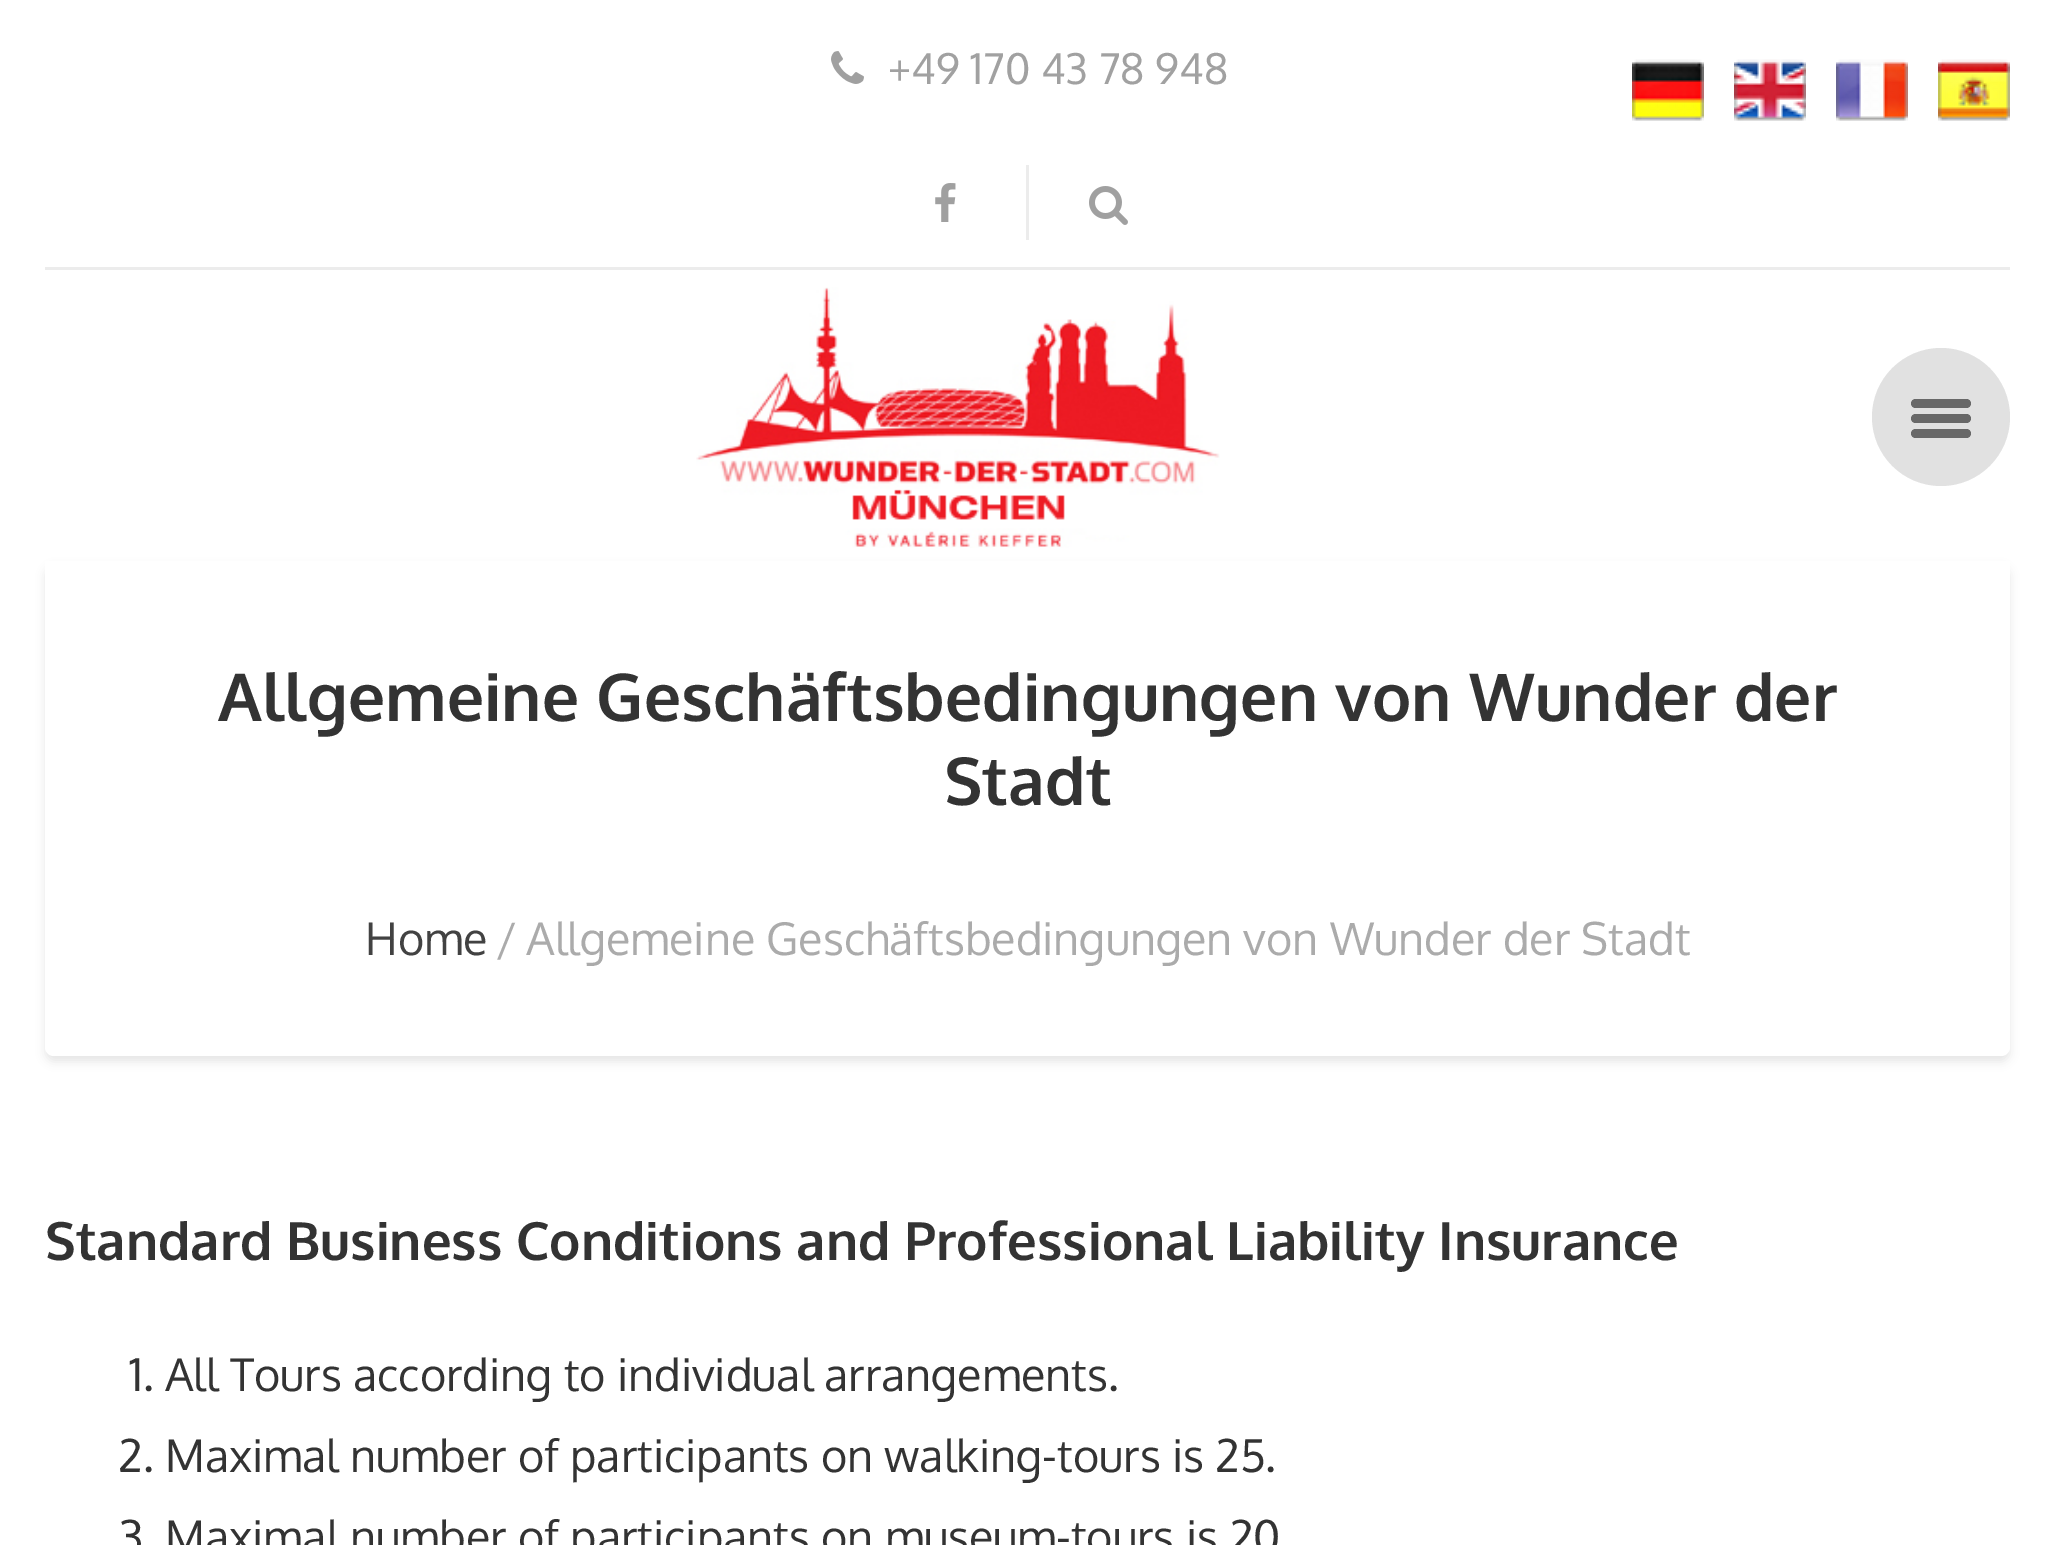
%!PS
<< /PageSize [2053 1545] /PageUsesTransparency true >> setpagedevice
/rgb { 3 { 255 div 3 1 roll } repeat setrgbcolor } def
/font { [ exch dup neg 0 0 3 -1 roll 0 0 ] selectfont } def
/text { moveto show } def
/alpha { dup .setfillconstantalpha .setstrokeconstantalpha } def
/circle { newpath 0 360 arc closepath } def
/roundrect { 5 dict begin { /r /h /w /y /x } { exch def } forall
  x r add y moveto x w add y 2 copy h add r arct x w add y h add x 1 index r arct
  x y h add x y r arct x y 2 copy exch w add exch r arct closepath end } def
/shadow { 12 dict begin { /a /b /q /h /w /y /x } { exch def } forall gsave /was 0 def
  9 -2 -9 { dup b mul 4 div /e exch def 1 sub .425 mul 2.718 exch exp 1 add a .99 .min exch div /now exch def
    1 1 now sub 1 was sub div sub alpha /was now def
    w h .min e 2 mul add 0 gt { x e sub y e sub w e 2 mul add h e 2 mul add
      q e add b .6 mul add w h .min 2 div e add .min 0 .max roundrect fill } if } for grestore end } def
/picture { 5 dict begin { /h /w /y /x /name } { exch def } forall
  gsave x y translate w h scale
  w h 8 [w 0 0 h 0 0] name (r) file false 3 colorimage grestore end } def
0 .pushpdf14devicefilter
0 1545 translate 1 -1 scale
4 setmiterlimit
255 255 255 rgb
0 0 2053 1545 rectfill
(img_01.rgb) 831 51 33 33 picture
(img_02.rgb) 935 183 21 39 picture
236 236 236 rgb
1026 165 3 75 rectfill
(img_03.rgb) 1089 186 39 39 picture
45 267 1965 3 rectfill
(img_04.rgb) 696 287 524 261 picture
225 225 225 rgb
1941 417 69 circle fill
104 104 104 rgb
1911 414 60 9 4.5 roundrect fill
1911 399 60 9 4.5 roundrect fill
1911 429 60 9 4.5 roundrect fill
0 0 0 rgb
45 567 1965 495 9 4.5 0.09 shadow
255 255 255 rgb
45 561 moveto 1965 0 rlineto 0 486 rlineto 0 5 -4 9 -9 9 rcurveto -1947 0 rlineto -5 0 -9 -4 -9 -9 rcurveto closepath fill
(img_05.rgb) 1632 59 72 62 picture
(img_06.rgb) 1734 59 72 62 picture
(img_07.rgb) 1836 59 72 62 picture
(img_08.rgb) 1938 59 72 62 picture
/Oxygen-Regular 42 font
161 161 161 rgb
(+49 170 43 78 948) 888 84 text
/Oxygen-Bold 66 font
51 51 51 rgb
(Allgemeine Geschäftsbedingungen von Wunder der) 218 721 text
(Stadt) 944 805 text
/Oxygen-Regular 45 font
66 66 66 rgb
(Home) 365 955 text
171 171 171 rgb
(/) 496 955 text
(Allgemeine Geschäftsbedingungen von Wunder der Stadt) 526 955 text
/Oxygen-Bold 52.65 font
51 51 51 rgb
45 1260 moveto -0.25 0 32 (Standard Business Conditions and Professional Liability Insurance) widthshow
/Oxygen-Regular 45 font
(1. All Tours according to individual arrangements.) 129 1391 text
(2. Maximal number of participants on walking-tours is 25.) 118 1472 text
(3) 119 1553 text
(Maximal number of participants on museum-tours is 20) 165 1553 text
.poppdf14devicefilter showpage
